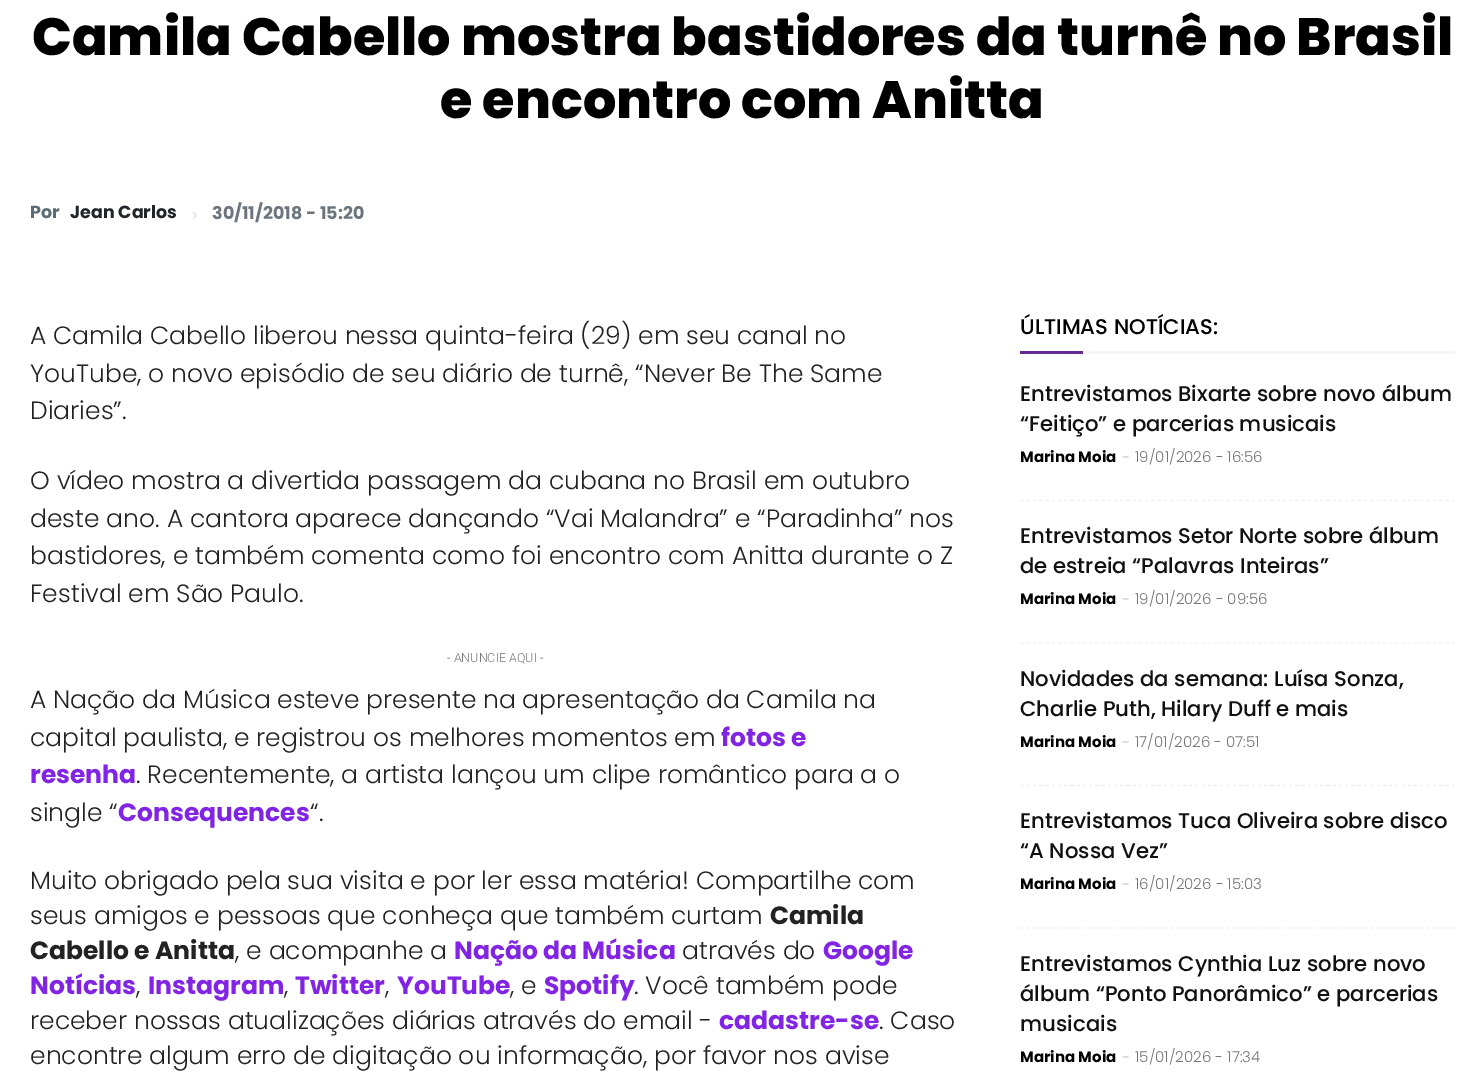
%!PS
<< /PageSize [1484 1077] >> setpagedevice
/rgb { 3 { 255 div 3 1 roll } repeat setrgbcolor } def
/font { [ exch dup neg 0 0 3 -1 roll 0 0 ] selectfont } def
/text { moveto show } def
/picture { 5 dict begin { /h /w /y /x /name } { exch def } forall
  gsave x y translate w h scale
  w h 8 [w 0 0 h 0 0] name (r) file false 3 colorimage grestore end } def
0 1077 translate 1 -1 scale
4 setmiterlimit
255 255 255 rgb
0 0 1484 1077 rectfill
(img_01.rgb) 192 211 5 9 picture
98 41 146 rgb
1020 351 63 3 rectfill
245 245 245 rgb
1083 351 372 3 rectfill
242 242 242 rgb
1.2 setlinewidth
[3.75 2.5] 0 setdash
1020 500.5 moveto 435 0 rlineto stroke
1020 643 moveto 435 0 rlineto stroke
1020 785.5 moveto 435 0 rlineto stroke
1020 928 moveto 435 0 rlineto stroke
/Poppins-ExtraBold 52.5 font
0 0 0 rgb
(Camila Cabello mostra bastidores da turnê no Brasil) 32 55 text
(e encontro com Anitta) 440 118 text
/Poppins-Bold 17.5 font
91 107 117 rgb
(Por) 30 218 text
33 37 41 rgb
(Jean Carlos) 70 218 text
108 117 125 rgb
(30/11/2018 - 15:20) 212 219 text
/Poppins-Light 25 font
34 34 34 rgb
(A Camila Cabello liberou nessa quinta-feira \(29\) em seu canal no) 30 344 text
(YouTube, o novo episódio de seu diário de turnê, “Never Be The Same) 30 382 text
(Diaries”.) 30 419 text
(O vídeo mostra a divertida passagem da cubana no Brasil em outubro) 30 489 text
(deste ano. A cantora aparece dançando “Vai Malandra” e “Paradinha” nos) 30 527 text
(bastidores, e também comenta como foi encontro com Anitta durante o Z) 30 564 text
(Festival em São Paulo.) 30 602 text
/Roboto-Light 12.5 font
118 118 118 rgb
(- ANUNCIE AQUI -) 447 662 text
/Poppins-Light 25 font
34 34 34 rgb
(A Nação da Música esteve presente na apresentação da Camila na) 30 708 text
(capital paulista, e registrou os melhores momentos em) 30 746 text
/Poppins-Bold 25 font
130 36 227 rgb
(fotos e) 721 746 text
(resenha) 30 783 text
/Poppins-Light 25 font
34 34 34 rgb
(. Recentemente, a artista lançou um clipe romântico para a o) 136 783 text
(single “) 30 821 text
/Poppins-Bold 25 font
130 36 227 rgb
(Consequences) 118 821 text
/Poppins-Light 25 font
34 34 34 rgb
(“.) 310 821 text
(Muito obrigado pela sua visita e por ler essa matéria! Compartilhe com) 30 889 text
(seus amigos e pessoas que conheça que também curtam) 30 924 text
/Poppins-Bold 25 font
(Camila) 770 924 text
(Cabello e Anitta) 30 959 text
/Poppins-Light 25 font
(, e acompanhe a) 235 959 text
/Poppins-Bold 25 font
130 36 227 rgb
(Nação da Música) 454 959 text
/Poppins-Light 25 font
34 34 34 rgb
(através do) 682 959 text
/Poppins-Bold 25 font
130 36 227 rgb
(Google) 823 959 text
(Notícias) 30 994 text
/Poppins-Light 25 font
34 34 34 rgb
(,) 136 994 text
/Poppins-Bold 25 font
130 36 227 rgb
(Instagram) 148 994 text
/Poppins-Light 25 font
34 34 34 rgb
(,) 284 994 text
/Poppins-Bold 25 font
130 36 227 rgb
(Twitter) 295 994 text
/Poppins-Light 25 font
34 34 34 rgb
(,) 385 994 text
/Poppins-Bold 25 font
130 36 227 rgb
(YouTube) 397 994 text
/Poppins-Light 25 font
34 34 34 rgb
(, e) 510 994 text
/Poppins-Bold 25 font
130 36 227 rgb
(Spotify) 544 994 text
/Poppins-Light 25 font
34 34 34 rgb
(. Você também pode) 634 994 text
(receber nossas atualizações diárias através do email -) 30 1029 text
/Poppins-Bold 25 font
130 36 227 rgb
(cadastre-se) 719 1029 text
/Poppins-Light 25 font
34 34 34 rgb
(. Caso) 879 1029 text
(encontre algum erro de digitação ou informação, por favor nos avise) 30 1064 text
/Poppins-Medium 21.25 font
0 0 0 rgb
(ÚLTIMAS NOTÍCIAS:) 1020 334 text
17 17 17 rgb
(Entrevistamos Bixarte sobre novo álbum) 1020 401 text
(“Feitiço” e parcerias musicais) 1020 431 text
/Poppins-Bold 15 font
0 0 0 rgb
(Marina Moia) 1020 462 text
/Poppins-Regular 14 font
204 204 204 rgb
(-) 1122 462 text
/Poppins-Light 15 font
118 118 118 rgb
(19/01/2026 - 16:56) 1135 462 text
/Poppins-Medium 21.25 font
17 17 17 rgb
(Entrevistamos Setor Norte sobre álbum) 1020 543 text
(de estreia “Palavras Inteiras”) 1020 573 text
/Poppins-Bold 15 font
0 0 0 rgb
(Marina Moia) 1020 604 text
/Poppins-Regular 14 font
204 204 204 rgb
(-) 1122 604 text
/Poppins-Light 15 font
118 118 118 rgb
(19/01/2026 - 09:56) 1135 604 text
/Poppins-Medium 21.25 font
17 17 17 rgb
(Novidades da semana: Luísa Sonza,) 1020 686 text
(Charlie Puth, Hilary Duff e mais) 1020 716 text
/Poppins-Bold 15 font
0 0 0 rgb
(Marina Moia) 1020 747 text
/Poppins-Regular 14 font
204 204 204 rgb
(-) 1122 747 text
/Poppins-Light 15 font
118 118 118 rgb
(17/01/2026 - 07:51) 1135 747 text
/Poppins-Medium 21.25 font
17 17 17 rgb
(Entrevistamos Tuca Oliveira sobre disco) 1020 828 text
(“A Nossa Vez”) 1020 858 text
/Poppins-Bold 15 font
0 0 0 rgb
(Marina Moia) 1020 889 text
/Poppins-Regular 14 font
204 204 204 rgb
(-) 1122 889 text
/Poppins-Light 15 font
118 118 118 rgb
(16/01/2026 - 15:03) 1135 889 text
/Poppins-Medium 21.25 font
17 17 17 rgb
(Entrevistamos Cynthia Luz sobre novo) 1020 971 text
(álbum “Ponto Panorâmico” e parcerias) 1020 1001 text
(musicais) 1020 1031 text
/Poppins-Bold 15 font
0 0 0 rgb
(Marina Moia) 1020 1062 text
/Poppins-Regular 14 font
204 204 204 rgb
(-) 1122 1062 text
/Poppins-Light 15 font
118 118 118 rgb
(15/01/2026 - 17:34) 1135 1062 text
showpage
